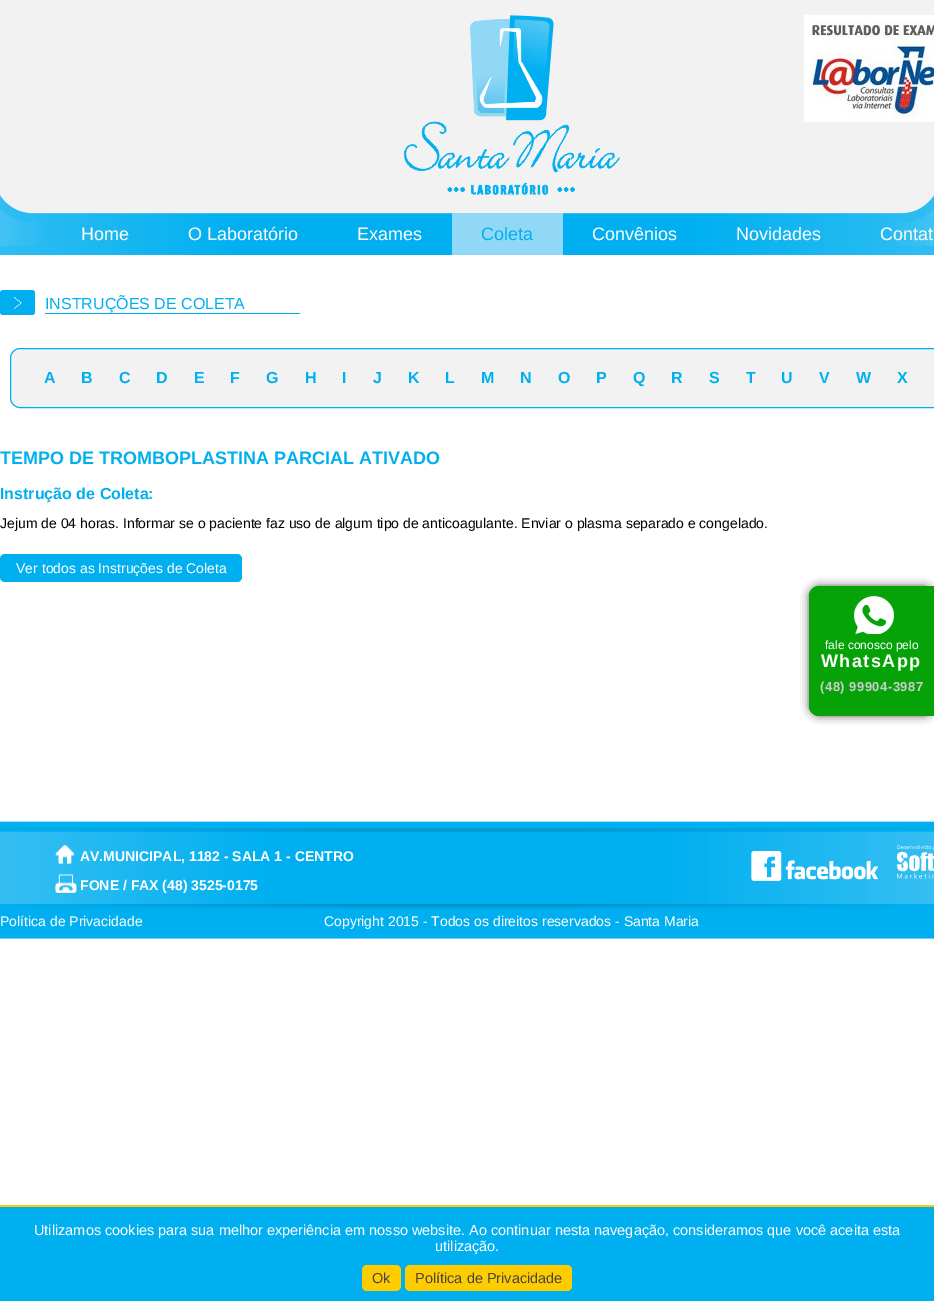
%!PS
<< /PageSize [934 1301] /PageUsesTransparency true >> setpagedevice
/rgb { 3 { 255 div 3 1 roll } repeat setrgbcolor } def
/font { [ exch dup neg 0 0 3 -1 roll 0 0 ] selectfont } def
/text { moveto show } def
/alpha { dup .setfillconstantalpha .setstrokeconstantalpha } def
/roundrect { 5 dict begin { /r /h /w /y /x } { exch def } forall
  x r add y moveto x w add y 2 copy h add r arct x w add y h add x 1 index r arct
  x y h add x y r arct x y 2 copy exch w add exch r arct closepath end } def
/shadow { 12 dict begin { /a /b /q /h /w /y /x } { exch def } forall gsave /was 0 def
  9 -2 -9 { dup b mul 4 div /e exch def 1 sub .425 mul 2.718 exch exp 1 add a .99 .min exch div /now exch def
    1 1 now sub 1 was sub div sub alpha /was now def
    w h .min e 2 mul add 0 gt { x e sub y e sub w e 2 mul add h e 2 mul add
      q e add b .6 mul add w h .min 2 div e add .min 0 .max roundrect fill } if } for grestore end } def
/picture { 5 dict begin { /h /w /y /x /name } { exch def } forall
  gsave x y translate w h scale
  w h 8 [w 0 0 h 0 0] name (r) file false 3 colorimage grestore end } def
0 .pushpdf14devicefilter
0 1301 translate 1 -1 scale
4 setmiterlimit
255 255 255 rgb
0 0 934 1301 rectfill
(img_01.rgb) 0 0 934 255 picture
(img_02.rgb) 404 15 216 180 picture
(img_03.rgb) 804 15 130 107 picture
145 216 247 rgb
452 213 111 42 rectfill
0 0 0 rgb
811 588 121 126 8 5 1 shadow
5 163 8 rgb
819 586 moveto 115 0 rlineto 0 130 rlineto -115 0 rlineto -5.5 0 -10 -4.5 -10 -10 rcurveto 0 -110 rlineto 0 -5.5 4.5 -10 10 -10 rcurveto closepath fill
(img_04.rgb) 854 596 40 38 picture
0 175 239 rgb
0 290 35 25 3 roundrect fill
(img_05.rgb) 14 297 8 12 picture
45 313 255 1 rectfill
242 242 242 rgb
10.5 348.5 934 59 9.5 roundrect gsave fill grestore
0 175 239 rgb
stroke
0 554 242 28 5 roundrect fill
(img_06.rgb) 0 821 934 118 picture
(img_07.rgb) 55 845 20 19 picture
(img_08.rgb) 55 874 22 19 picture
(img_09.rgb) 751 851 128 30 picture
(img_10.rgb) 897 845 37 34 picture
0 1207 934 94 rectfill
255 204 0 rgb
0 1205 934 2 rectfill
362 1265 39 26 5 roundrect fill
405 1265 167 26 5 roundrect fill
/LiberationSans-Regular 18 font
255 255 255 rgb
(Home) 81 240 text
(O Laboratório) 188 240 text
(Exames) 357 240 text
0 175 239 rgb
(Coleta) 481 240 text
255 255 255 rgb
(Convênios) 592 240 text
(Novidades) 736 240 text
(Contat) 880 240 text
/LiberationSans-Regular 12 font
(fale conosco pelo) 825 649 text
/LiberationSans-Bold 18 font
821 667 moveto 1.5 0 (WhatsApp) ashow
/LiberationSans-Bold 13 font
204 204 204 rgb
820 691 moveto 0.5 0 (\(48\) 99904-3987) ashow
/LiberationSans-Regular 16 font
0 175 239 rgb
(INSTRUÇÕES DE COLETA) 45 309 text
/LiberationSans-Bold 16 font
(A) 44 383 text
(B) 81 383 text
(C) 119 383 text
(D) 156 383 text
(E) 194 383 text
(F) 230 383 text
(G) 266 383 text
(H) 305 383 text
(I) 342 383 text
(J) 373 383 text
(K) 408 383 text
(L) 445 383 text
(M) 481 383 text
(N) 520 383 text
(O) 558 383 text
(P) 596 383 text
(Q) 633 383 text
(R) 671 383 text
(S) 709 383 text
(T) 746 383 text
(U) 781 383 text
(V) 819 383 text
(W) 856 383 text
(X) 897 383 text
/LiberationSans-Bold 18 font
(TEMPO DE TROMBOPLASTINA PARCIAL ATIVADO) 0 464 text
/LiberationSans-Bold 16 font
(Instrução de Coleta:) 0 499 text
/LiberationSans-Regular 14 font
0 0 0 rgb
(Jejum de 04 horas. Informar se o paciente faz uso de algum tipo de anticoagulante. Enviar o plasma separado e congelado.) 0 528 text
255 255 255 rgb
(Ver todos as Instruções de Coleta) 16 573 text
/LiberationSans-Bold 14 font
(AV.MUNICIPAL, 1182 - SALA 1 - CENTRO) 80 861 text
(FONE / FAX \(48\) 3525-0175) 80 890 text
/LiberationSans-Regular 14 font
(Política de Privacidade) 0 926 text
(Copyright 2015 - Todos os direitos reservados - Santa Maria) 324 926 text
/LiberationSans-Regular 14.5 font
(Utilizamos cookies para sua melhor experiência em nosso website. Ao continuar nesta navegação, consideramos que você aceita esta) 34 1235 text
(utilização.) 435 1251 text
68 68 68 rgb
(Ok) 372 1283 text
(Política de Privacidade) 415 1283 text
.poppdf14devicefilter showpage
